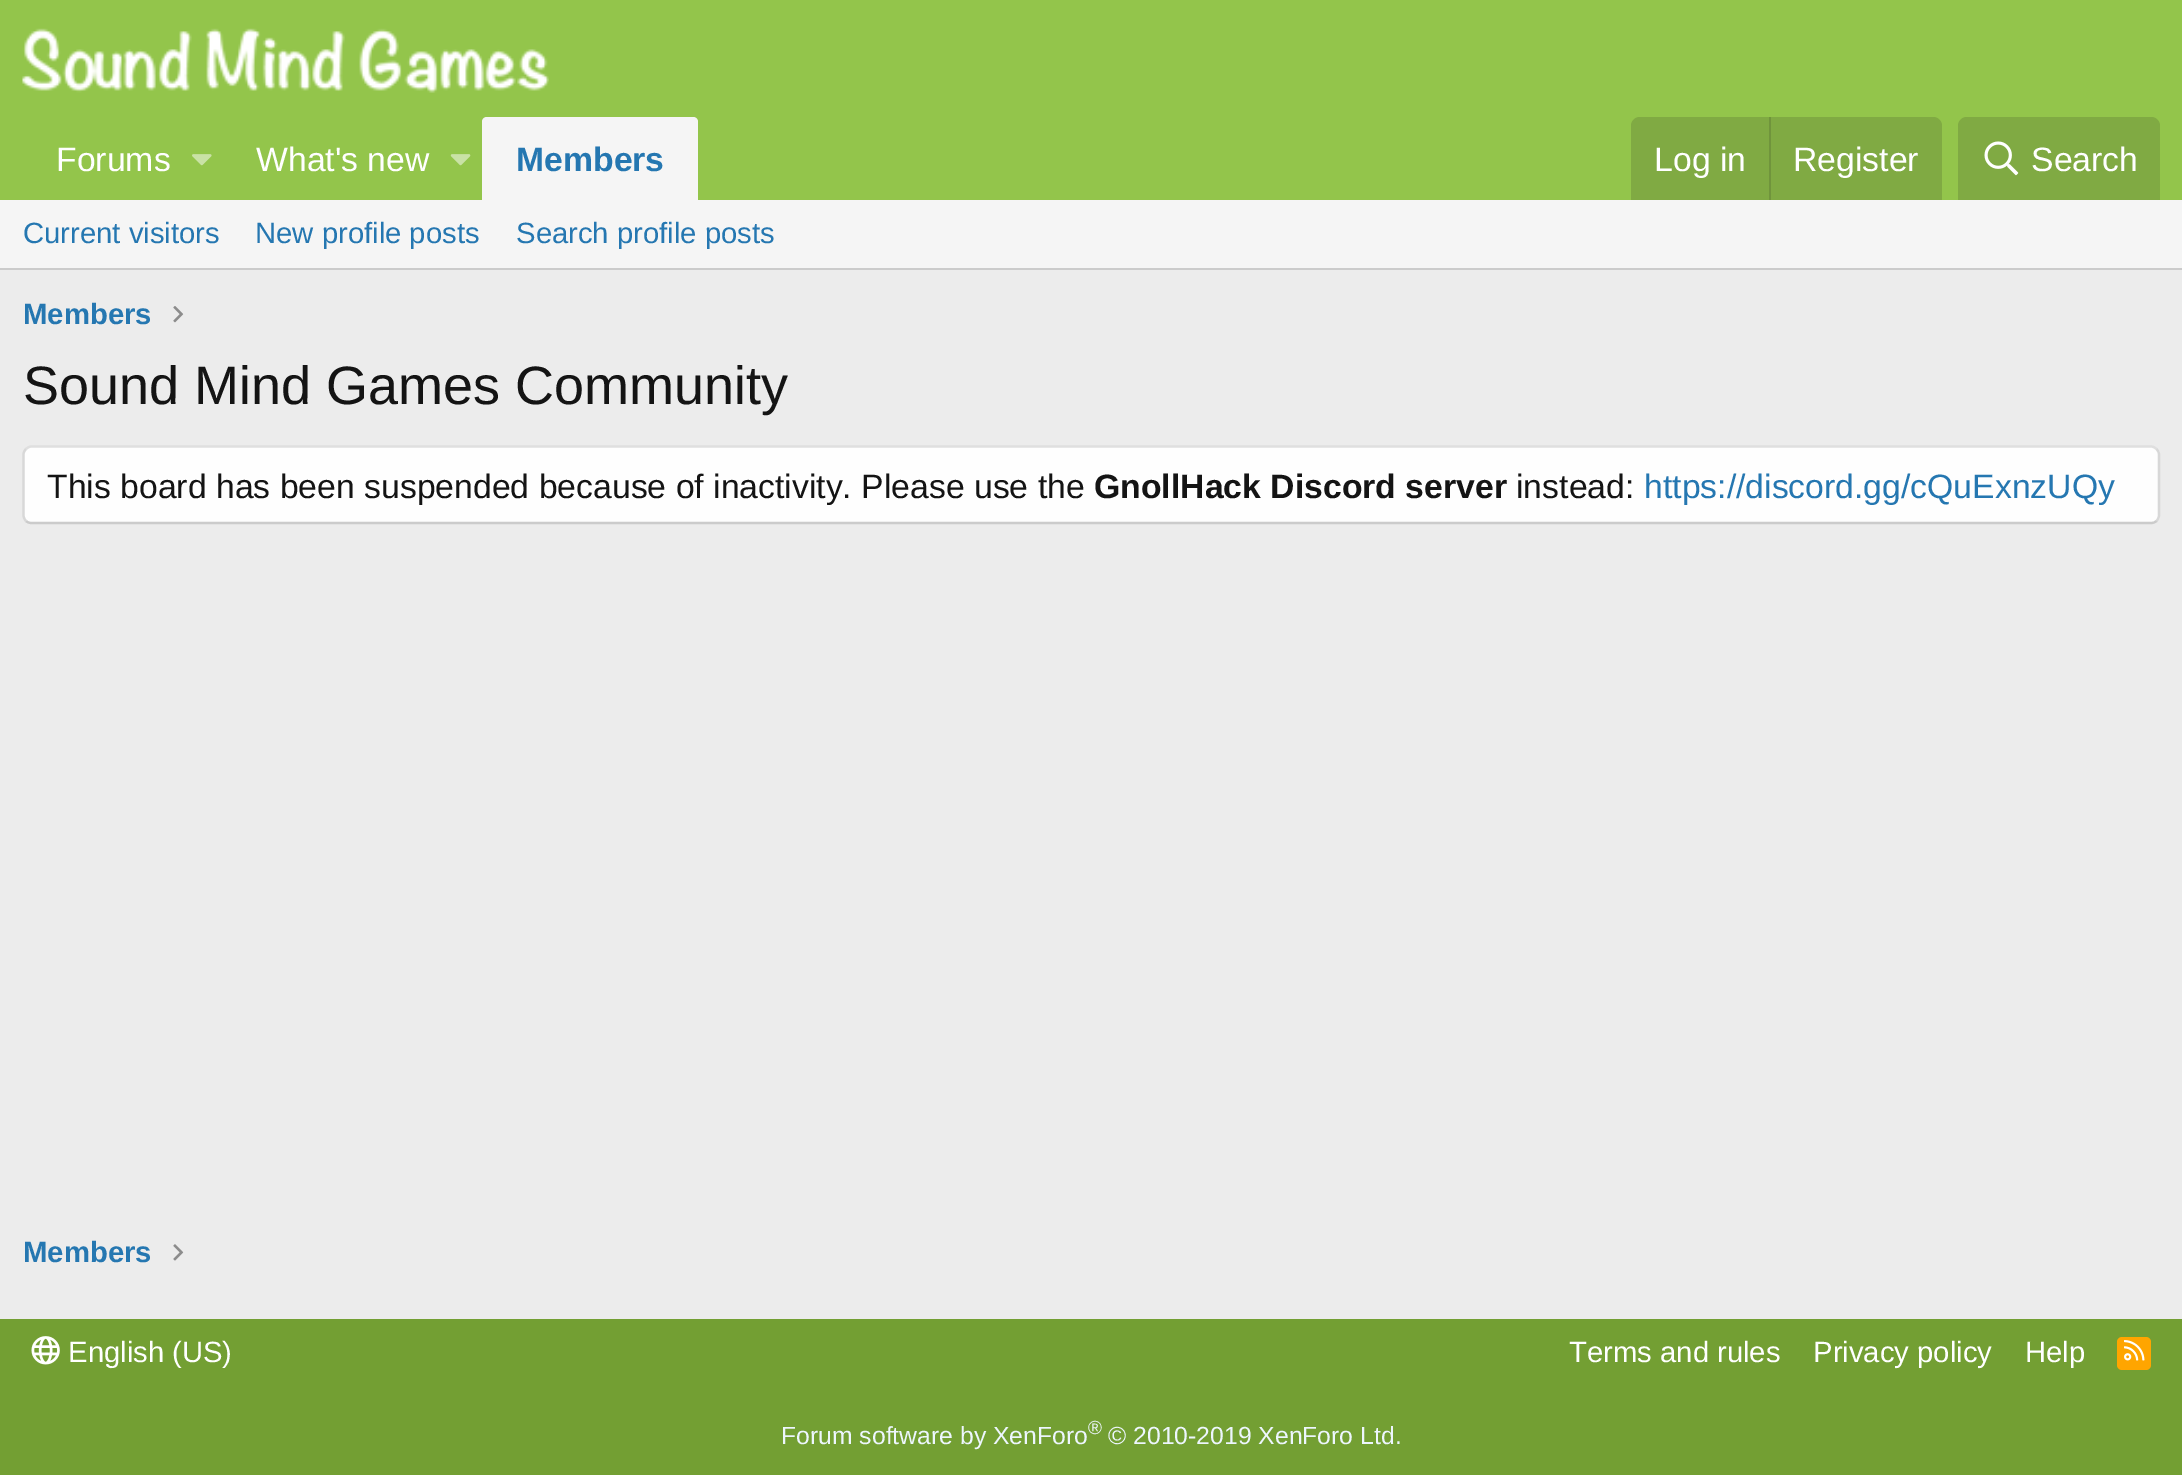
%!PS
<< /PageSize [2182 1475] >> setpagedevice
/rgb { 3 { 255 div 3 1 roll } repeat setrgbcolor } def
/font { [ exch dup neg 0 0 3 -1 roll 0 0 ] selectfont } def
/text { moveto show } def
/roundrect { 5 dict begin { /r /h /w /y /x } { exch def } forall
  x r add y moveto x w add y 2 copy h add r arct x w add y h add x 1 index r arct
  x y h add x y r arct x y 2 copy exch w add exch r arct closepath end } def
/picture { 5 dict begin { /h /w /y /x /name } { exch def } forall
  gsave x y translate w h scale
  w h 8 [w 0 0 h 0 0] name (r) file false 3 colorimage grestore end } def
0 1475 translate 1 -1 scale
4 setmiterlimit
236 236 236 rgb
0 0 2182 1475 rectfill
147 197 75 rgb
0 0 2182 200 rectfill
(img_01.rgb) 22 28 527 65 picture
(img_02.rgb) 192 154 20 12 picture
(img_03.rgb) 450 154 21 12 picture
245 245 245 rgb
487 117 moveto 206 0 rlineto 3 0 5 2 5 5 rcurveto 0 78 rlineto -216 0 rlineto 0 -78 rlineto 0 -3 2 -5 5 -5 rcurveto closepath fill
128 170 67 rgb
1640 117 moveto 293 0 rlineto 5 0 9 4 9 9 rcurveto 0 74 rlineto -311 0 rlineto 0 -74 rlineto 0 -5 4 -9 9 -9 rcurveto closepath fill
112 148 60 rgb
1769 117 2 83 rectfill
128 170 67 rgb
1967 117 moveto 184 0 rlineto 5 0 9 4 9 9 rcurveto 0 74 rlineto -202 0 rlineto 0 -74 rlineto 0 -5 4 -9 9 -9 rcurveto closepath fill
(img_04.rgb) 1984 141 35 35 picture
245 245 245 rgb
0 200 2182 68 rectfill
203 203 203 rgb
0 268 2182 2 rectfill
(img_05.rgb) 173 306 11 17 picture
254 254 254 rgb
23 446 2137 78 9 roundrect fill
223 223 223 rgb
2.2 setlinewidth
26 449 moveto 1.5 -1.5 3.5 -2.5 5.5 -2.5 rcurveto 2119.5 0 rlineto 2 0 4 1 5.5 2.5 rcurveto stroke
216 216 216 rgb
2156.5 449 moveto 1.5 1.5 2.5 3.5 2.5 5.5 rcurveto 0 60.5 rlineto 0 2.5 -1 4.5 -2.5 6 rcurveto stroke
203 203 203 rgb
2156.5 521 moveto -1.5 1.5 -3.5 2 -5.5 2 rcurveto -2119.5 0 rlineto -2 0 -4 -0.5 -5.5 -2 rcurveto stroke
216 216 216 rgb
26 521 moveto -1.5 -1.5 -2.5 -3.5 -2.5 -6 rcurveto 0 -60.5 rlineto 0 -2 1 -4 2.5 -5.5 rcurveto stroke
(img_06.rgb) 173 1244 11 17 picture
115 159 51 rgb
0 1319 2182 156 rectfill
(img_07.rgb) 31 1336 29 29 picture
255 165 0 rgb
2117 1337 34 33 5 roundrect fill
(img_08.rgb) 2124 1340 21 21 picture
/LiberationSans-Regular 33.75 font
255 255 255 rgb
(Forums) 56 171 text
(What's new) 256 171 text
/LiberationSans-Bold 33.75 font
37 119 177 rgb
(Members) 516 171 text
/LiberationSans-Regular 33.75 font
255 255 255 rgb
(Log in) 1654 171 text
(Register) 1793 171 text
(Search) 2031 171 text
/LiberationSans-Regular 29.25 font
37 119 177 rgb
(Current visitors) 23 243 text
(New profile posts) 255 243 text
(Search profile posts) 516 243 text
/LiberationSans-Bold 29.25 font
(Members) 23 324 text
/LiberationSans-Regular 54 font
20 20 20 rgb
(Sound Mind Games Community) 23 404 text
/LiberationSans-Regular 33.75 font
(This board has been suspended because of inactivity. Please use the) 47 498 text
/LiberationSans-Bold 33.75 font
(GnollHack Discord server) 1094 498 text
/LiberationSans-Regular 33.75 font
(instead:) 1516 498 text
37 119 177 rgb
(https://discord.gg/cQuExnzUQy) 1644 498 text
/LiberationSans-Bold 29.25 font
(Members) 23 1262 text
/LiberationSans-Regular 29.25 font
255 255 255 rgb
(English \(US\)) 68 1362 text
(Terms and rules) 1569 1362 text
(Privacy policy) 1813 1362 text
(Help) 2025 1362 text
/LiberationSans-Regular 24.75 font
237 246 253 rgb
(Forum software by XenForo) 781 1444 text
/LiberationSans-Regular 19 font
(®) 1088 1434 text
/LiberationSans-Regular 24.75 font
(© 2010-2019 XenForo Ltd.) 1108 1444 text
showpage
